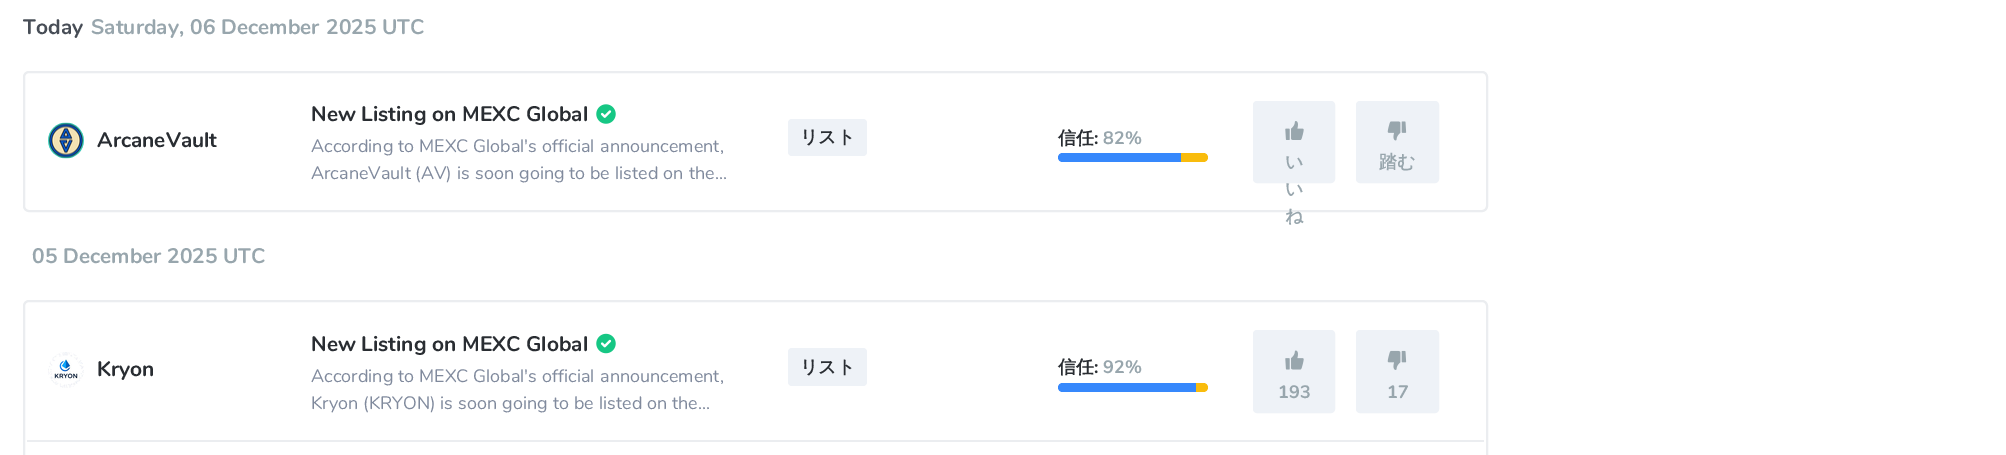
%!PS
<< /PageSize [2006 455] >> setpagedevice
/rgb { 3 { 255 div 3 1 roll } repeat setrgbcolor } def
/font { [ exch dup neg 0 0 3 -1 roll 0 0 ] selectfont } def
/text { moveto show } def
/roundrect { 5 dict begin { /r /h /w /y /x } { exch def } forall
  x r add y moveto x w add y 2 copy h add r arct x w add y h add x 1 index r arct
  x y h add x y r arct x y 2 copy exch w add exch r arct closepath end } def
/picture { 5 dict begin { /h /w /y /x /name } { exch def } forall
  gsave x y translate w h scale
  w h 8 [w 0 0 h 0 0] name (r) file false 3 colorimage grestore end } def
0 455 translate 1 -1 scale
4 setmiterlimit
255 255 255 rgb
0 0 2006 455 rectfill
235 237 240 rgb
2 setlinewidth
24 72 1463 139 5 roundrect stroke
(img_01.rgb) 48 122 36 37 picture
(img_02.rgb) 596 104 20 20 picture
238 242 247 rgb
788 119 79 37 4 roundrect fill
54 136 252 rgb
1062.5 153 moveto 118.5 0 rlineto 0 9 rlineto -118.5 0 rlineto -2.5 0 -4.5 -2 -4.5 -4.5 rcurveto 0 -2.5 2 -4.5 4.5 -4.5 rcurveto closepath fill
249 188 13 rgb
1181 153 moveto 22.5 0 rlineto 2.5 0 4.5 2 4.5 4.5 rcurveto 0 2.5 -2 4.5 -4.5 4.5 rcurveto -22.5 0 rlineto closepath fill
238 242 247 rgb
1254 102 80 80 3 roundrect gsave fill grestore
stroke
(img_03.rgb) 1285 121 19 19 picture
1357 102 81 80 3 roundrect gsave fill grestore
stroke
(img_04.rgb) 1387 121 20 20 picture
235 237 240 rgb
24 301 1463 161 5 roundrect stroke
27 440 1457 2 rectfill
(img_05.rgb) 48 352 36 36 picture
(img_06.rgb) 596 333 20 21 picture
238 242 247 rgb
788 348 79 38 4 roundrect fill
54 136 252 rgb
1062.5 383 moveto 133.5 0 rlineto 0 9 rlineto -133.5 0 rlineto -2.5 0 -4.5 -2 -4.5 -4.5 rcurveto 0 -2.5 2 -4.5 4.5 -4.5 rcurveto closepath fill
249 188 13 rgb
1196 383 moveto 7.5 0 rlineto 2.5 0 4.5 2 4.5 4.5 rcurveto 0 2.5 -2 4.5 -4.5 4.5 rcurveto -7.5 0 rlineto closepath fill
238 242 247 rgb
1254 331 80 81 3 roundrect gsave fill grestore
stroke
(img_07.rgb) 1285 350 19 20 picture
1357 331 81 81 3 roundrect gsave fill grestore
stroke
(img_08.rgb) 1387 350 20 20 picture
/Nunito-Bold 21 font
71 77 86 rgb
(Today) 23 34 text
152 166 173 rgb
(Saturday,) 91 34 text
(06) 190 34 text
(December) 221 34 text
(2025) 326 34 text
(UTC) 382 34 text
41 45 50 rgb
(ArcaneVault) 97 147 text
(New) 311 121 text
(Listing) 361 121 text
(on) 432 121 text
(MEXC) 462 121 text
(Global) 526 121 text
/Nunito-Regular 18 font
128 138 157 rgb
(According) 311 152 text
(to) 398 152 text
(MEXC) 419 152 text
(Global's) 473 152 text
(official) 542 152 text
(announcement,) 600 152 text
(ArcaneVault) 311 179 text
(\(AV\)) 415 179 text
(is) 457 179 text
(soon) 475 179 text
(going) 519 179 text
(to) 569 179 text
(be) 590 179 text
(listed) 615 179 text
(on) 663 179 text
(the...) 689 179 text
/WenQuanYiZenHei-Bold 18 font
41 45 50 rgb
(リスト) 800 143 text
(信任) 1058 144 text
/Nunito-Bold 18 font
(:) 1094 144 text
152 166 173 rgb
(82%) 1103 144 text
/WenQuanYiZenHei-Bold 18 font
(い) 1285 168 text
(い) 1285 195 text
(ね) 1285 222 text
(踏む) 1379 168 text
/Nunito-Bold 21 font
(05) 32 263 text
(December) 63 263 text
(2025) 167 263 text
(UTC) 223 263 text
41 45 50 rgb
(Kryon) 97 376 text
(New) 311 351 text
(Listing) 361 351 text
(on) 432 351 text
(MEXC) 462 351 text
(Global) 526 351 text
/Nunito-Regular 18 font
128 138 157 rgb
(According) 311 382 text
(to) 398 382 text
(MEXC) 419 382 text
(Global's) 473 382 text
(official) 542 382 text
(announcement,) 600 382 text
(Kryon) 311 409 text
(\(KRYON\)) 363 409 text
(is) 440 409 text
(soon) 458 409 text
(going) 502 409 text
(to) 553 409 text
(be) 574 409 text
(listed) 599 409 text
(on) 647 409 text
(the...) 672 409 text
/WenQuanYiZenHei-Bold 18 font
41 45 50 rgb
(リスト) 800 373 text
(信任) 1058 373 text
/Nunito-Bold 18 font
(:) 1094 373 text
152 166 173 rgb
(92%) 1103 373 text
(193) 1278 398 text
(17) 1387 398 text
showpage
